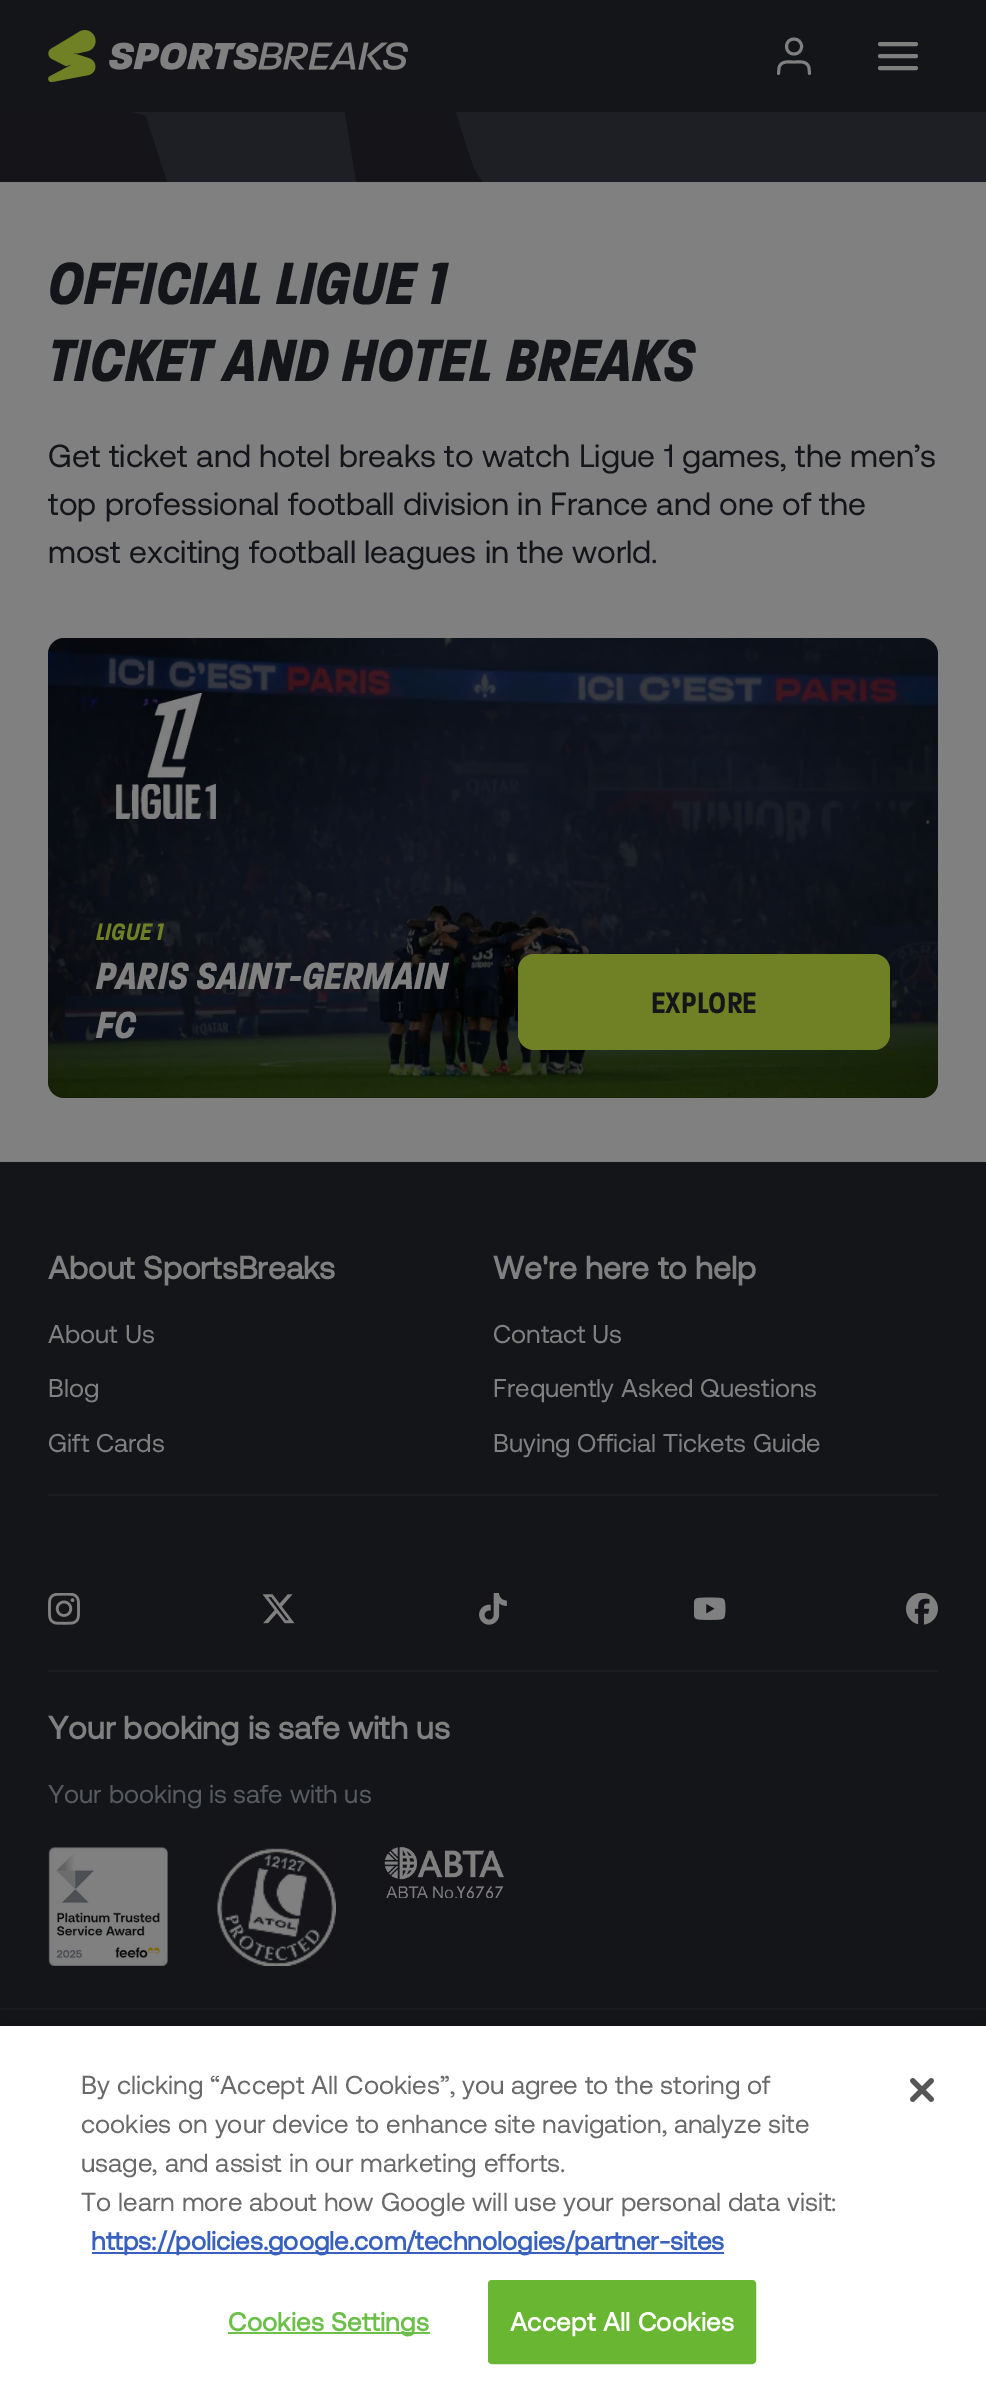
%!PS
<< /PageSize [986 2395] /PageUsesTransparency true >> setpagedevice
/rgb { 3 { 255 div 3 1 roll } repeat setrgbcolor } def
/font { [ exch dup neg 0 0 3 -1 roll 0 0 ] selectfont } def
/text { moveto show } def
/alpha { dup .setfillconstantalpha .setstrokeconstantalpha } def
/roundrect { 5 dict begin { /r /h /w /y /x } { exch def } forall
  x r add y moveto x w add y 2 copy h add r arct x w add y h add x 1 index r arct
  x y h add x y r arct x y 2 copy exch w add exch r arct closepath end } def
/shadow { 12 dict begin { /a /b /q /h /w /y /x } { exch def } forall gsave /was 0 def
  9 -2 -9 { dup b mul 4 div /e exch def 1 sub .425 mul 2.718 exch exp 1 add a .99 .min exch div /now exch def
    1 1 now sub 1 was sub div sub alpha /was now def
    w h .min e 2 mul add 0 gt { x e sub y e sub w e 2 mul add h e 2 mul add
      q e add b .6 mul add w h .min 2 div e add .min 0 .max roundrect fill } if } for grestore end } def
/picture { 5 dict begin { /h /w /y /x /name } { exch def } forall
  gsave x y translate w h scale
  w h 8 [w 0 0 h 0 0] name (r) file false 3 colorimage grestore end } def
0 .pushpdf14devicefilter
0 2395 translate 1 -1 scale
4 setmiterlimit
128 128 128 rgb
0 0 986 2395 rectfill
20 21 25 rgb
0 0 986 112 rectfill
(img_01.rgb) 48 30 360 52 picture
128 128 128 rgb
2.9 setlinewidth
1 setlinecap
1 setlinejoin
809.5 73.5 moveto -0.5 -5.5 rlineto -1.5 -7.5 -9.5 -6 -15 -6 rcurveto -5.5 0 -13.5 -1.5 -15 6 rcurveto -0.5 5.5 rlineto 801.5 46.5 moveto 0 10 -15 10 -15 0 rcurveto 0 -10 15 -10 15 0 rcurveto closepath stroke
4 setlinewidth
880 44 moveto 36 0 rlineto 880 56 moveto 36 0 rlineto 880 68 moveto 36 0 rlineto stroke
(img_02.rgb) 0 112 986 70 picture
(img_03.rgb) 48 638 890 460 picture
0.5 alpha
0 0 0 rgb
48 638 890 460 16 roundrect fill
1 alpha
(img_04.rgb) 116 693 100 126 picture
112 128 36 rgb
518 954 372 96 16 roundrect fill
20 21 25 rgb
0 1162 986 864 rectfill
26 29 32 rgb
48 1494 890 2 rectfill
(img_05.rgb) 48 1593 32 32 picture
(img_06.rgb) 263 1594 32 30 picture
(img_07.rgb) 479 1593 28 32 picture
(img_08.rgb) 694 1597 32 23 picture
(img_09.rgb) 906 1593 32 32 picture
48 1670 890 2 rectfill
(img_10.rgb) 48 1847 120 119 picture
(img_11.rgb) 217 1848 119 118 picture
(img_12.rgb) 384 1847 120 51 picture
0 2008 986 2 rectfill
0 0 0 rgb
0 2026 986 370 0 18 0.2 shadow
255 255 255 rgb
0 2026 986 369 rectfill
56 96 190 rgb
92 2252 632 2 rectfill
108 192 74 rgb
228 2332 202 2 rectfill
104 182 49 rgb
489 2281 266 82 3 roundrect gsave fill grestore
2 setlinewidth
0 setlinecap
0 setlinejoin
stroke
(img_13.rgb) 910 2078 24 24 picture
/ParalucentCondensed-BoldItalic 64.5 font
20 21 25 rgb
(OFFICIAL LIGUE 1) 48 304 text
(TICKET AND HOTEL BREAKS) 48 381 text
/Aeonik-Regular 32 font
(Get ticket and hotel breaks to watch Ligue 1 games, the men’s) 48 467 text
(top professional football division in France and one of the) 48 515 text
(most exciting football leagues in the world.) 48 563 text
/ParalucentCondensed-SemiBoldItalic 25.75 font
112 128 36 rgb
(LIGUE 1) 96 940 text
/ParalucentCondensed-BoldItalic 41 font
128 128 128 rgb
(PARIS SAINT-GERMAIN) 96 989 text
(FC) 96 1038 text
/ParalucentCondensed-SemiBold 32 font
20 21 25 rgb
(EXPLORE) 651 1013 text
/Aeonik-Bold 32 font
128 128 128 rgb
(About SportsBreaks) 48 1279 text
/Aeonik-Regular 25.75 font
(About Us) 48 1343 text
(Blog) 48 1397 text
(Gift Cards) 48 1452 text
/Aeonik-Bold 32 font
(We're here to help) 493 1279 text
/Aeonik-Regular 25.75 font
(Contact Us) 493 1343 text
(Frequently Asked Questions) 493 1397 text
(Buying Official Tickets Guide) 493 1452 text
/Aeonik-Bold 32 font
(Your booking is safe with us) 48 1739 text
/Aeonik-Regular 25.75 font
87 91 95 rgb
(Your booking is safe with us) 48 1803 text
/Aeonik-Regular 26 font
105 105 105 rgb
(By clicking “Accept All Cookies”, you agree to the storing of) 81 2094 text
(cookies on your device to enhance site navigation, analyze site) 81 2133 text
(usage, and assist in our marketing efforts.) 81 2172 text
(To learn more about how Google will use your personal data visit:) 81 2211 text
/Aeonik-Bold 26 font
56 96 190 rgb
(https://policies.google.com/technologies/partner-sites) 91 2250 text
108 192 74 rgb
228 2331 moveto 0.25 0 (Cookies Settings) ashow
255 255 255 rgb
510 2331 moveto 0.25 0 (Accept All Cookies) ashow
.poppdf14devicefilter showpage
